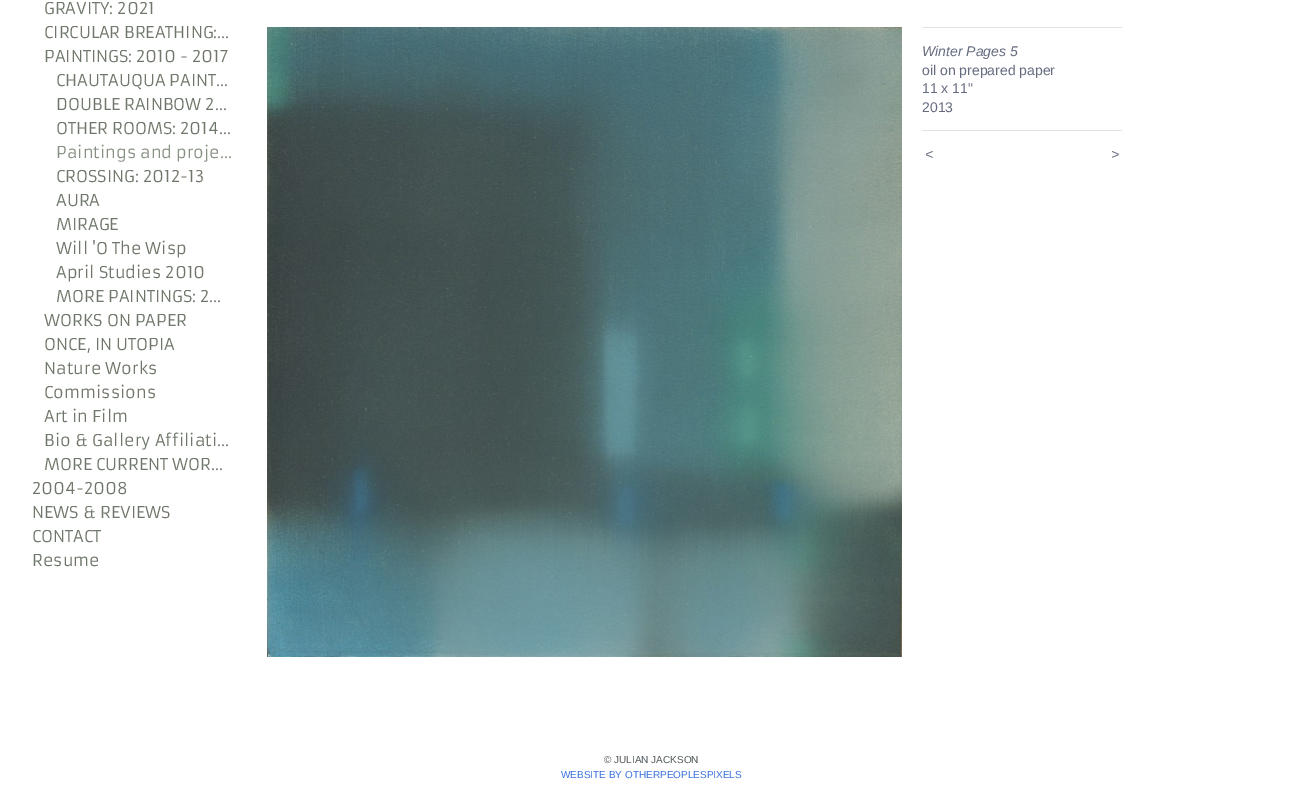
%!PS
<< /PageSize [1302 808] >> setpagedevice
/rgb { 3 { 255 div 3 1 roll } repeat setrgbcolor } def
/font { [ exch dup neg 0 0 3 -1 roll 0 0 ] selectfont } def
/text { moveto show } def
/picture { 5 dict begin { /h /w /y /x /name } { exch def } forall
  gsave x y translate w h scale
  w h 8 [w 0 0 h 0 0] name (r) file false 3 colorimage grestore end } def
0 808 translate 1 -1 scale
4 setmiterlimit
255 255 255 rgb
0 0 1302 808 rectfill
(img_01.rgb) 267 27 635 630 picture
224 226 229 rgb
922 27 200 1 rectfill
922 130 200 1 rectfill
/Armata-Regular 16 font
110 119 105 rgb
(GRAVITY: 2021) 44 14 text
(CIRCULAR BREATHING:…) 44 38 text
(PAINTINGS: 2010 - 2017) 44 62 text
(CHAUTAUQUA PAINT…) 56 86 text
(DOUBLE RAINBOW 2…) 56 110 text
(OTHER ROOMS: 2014…) 56 134 text
135 145 130 rgb
(Paintings and proje…) 56 158 text
110 119 105 rgb
(CROSSING: 2012-13) 56 182 text
(AURA) 56 206 text
(MIRAGE) 56 230 text
(Will 'O The Wisp) 56 254 text
(April Studies 2010) 56 278 text
(MORE PAINTINGS: 2…) 56 302 text
(WORKS ON PAPER) 44 326 text
(ONCE, IN UTOPIA) 44 350 text
(Nature Works) 44 374 text
(Commissions) 44 398 text
(Art in Film) 44 422 text
(Bio & Gallery Affiliati…) 44 446 text
(MORE CURRENT WOR…) 44 470 text
(2004-2008) 32 494 text
(NEWS & REVIEWS) 32 518 text
(CONTACT) 32 542 text
(Resume) 32 566 text
/LiberationSans-Italic 14 font
102 108 127 rgb
(Winter Pages 5) 922 56 text
/LiberationSans-Regular 14 font
(oil on prepared paper) 922 75 text
(11 x 11") 922 93 text
(2013) 922 112 text
/LiberationSans-Italic 14 font
925 159 moveto 1 0 (<) ashow
1111 159 moveto 1 0 (>) ashow
/LiberationSans-Regular 10 font
84 91 95 rgb
(© JULIAN JACKSON) 604 763 text
58 113 223 rgb
(WEBSITE BY OTHERPEOPLESPIXELS) 561 778 text
showpage
